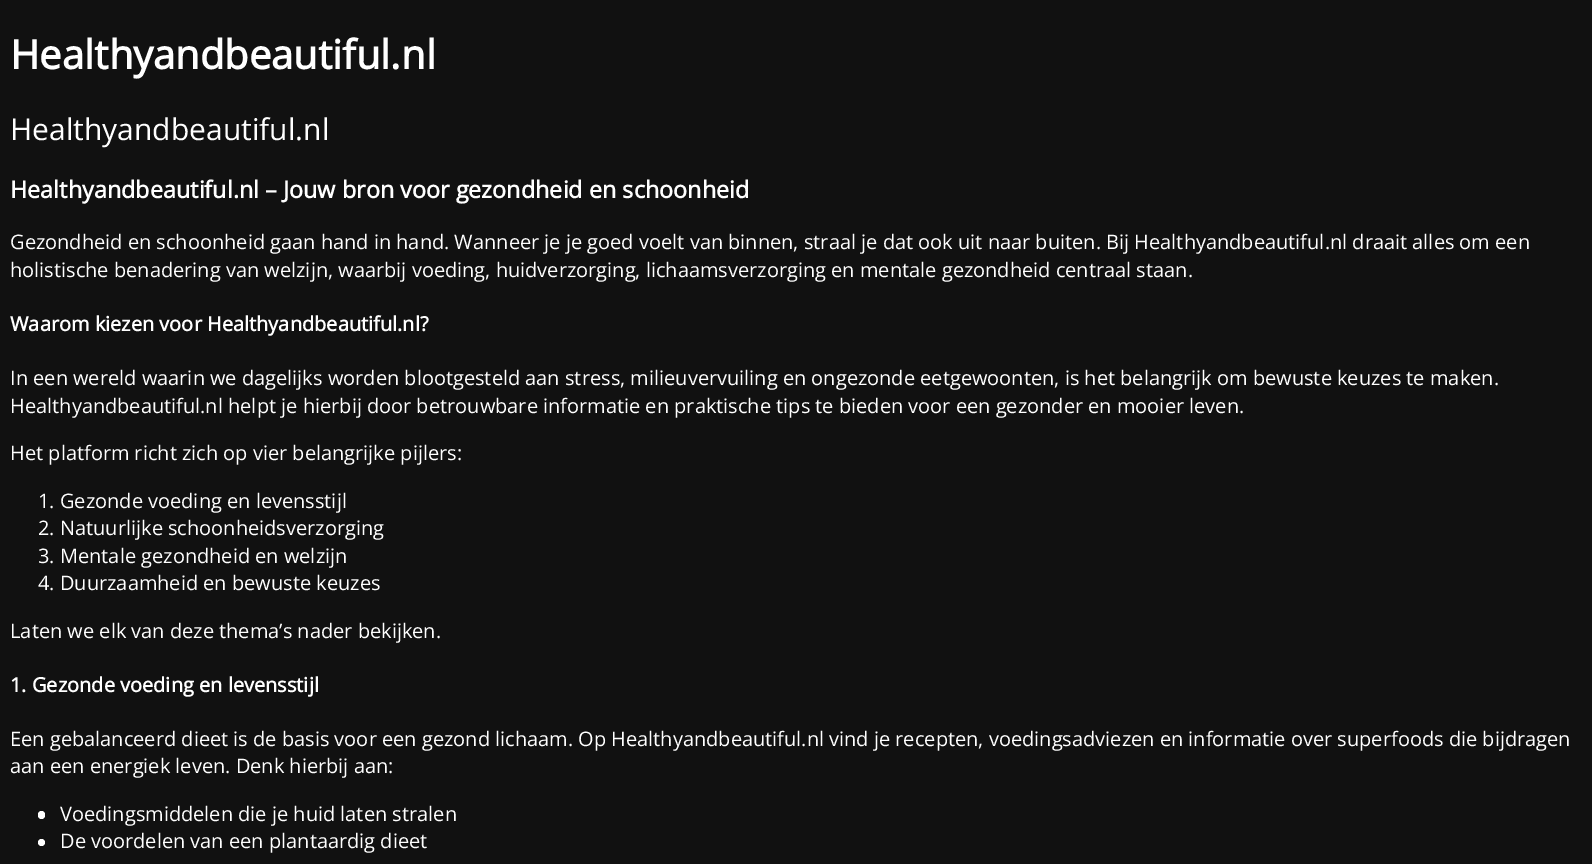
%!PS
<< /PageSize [1592 864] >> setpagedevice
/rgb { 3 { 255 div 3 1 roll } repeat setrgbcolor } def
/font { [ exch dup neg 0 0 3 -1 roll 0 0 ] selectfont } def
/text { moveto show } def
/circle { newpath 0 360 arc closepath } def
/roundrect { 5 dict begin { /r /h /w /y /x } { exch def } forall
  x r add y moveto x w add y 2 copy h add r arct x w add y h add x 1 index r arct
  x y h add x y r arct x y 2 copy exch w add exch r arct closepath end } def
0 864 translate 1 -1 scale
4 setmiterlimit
17 17 17 rgb
0 0 1592 864 rectfill
255 255 255 rgb
38 811 7 8 3.5 roundrect fill
41.5 842.5 3.5 circle fill
/OpenSans-Bold 40 font
(Healthyandbeautiful.nl) 10 69 text
/OpenSans-Regular 30 font
(Healthyandbeautiful.nl) 10 140 text
/OpenSans-Bold 23.4 font
(Healthyandbeautiful.nl – Jouw bron voor gezondheid en schoonheid) 10 198 text
/OpenSans-Regular 20 font
(Gezondheid en schoonheid gaan hand in hand. Wanneer je je goed voelt van binnen, straal je dat ook uit naar buiten. Bij Healthyandbeautiful.nl draait alles om een) 10 249 text
(holistische benadering van welzijn, waarbij voeding, huidverzorging, lichaamsverzorging en mentale gezondheid centraal staan.) 10 277 text
/OpenSans-Bold 20 font
(Waarom kiezen voor Healthyandbeautiful.nl?) 10 331 text
/OpenSans-Regular 20 font
(In een wereld waarin we dagelijks worden blootgesteld aan stress, milieuvervuiling en ongezonde eetgewoonten, is het belangrijk om bewuste keuzes te maken.) 10 385 text
(Healthyandbeautiful.nl helpt je hierbij door betrouwbare informatie en praktische tips te bieden voor een gezonder en mooier leven.) 10 413 text
(Het platform richt zich op vier belangrijke pijlers:) 10 460 text
(1. Gezonde voeding en levensstijl) 38 508 text
(2. Natuurlijke schoonheidsverzorging) 38 535 text
(3. Mentale gezondheid en welzijn) 38 563 text
(4. Duurzaamheid en bewuste keuzes) 38 590 text
(Laten we elk van deze thema’s nader bekijken.) 10 638 text
/OpenSans-Bold 20 font
(1. Gezonde voeding en levensstijl) 10 692 text
/OpenSans-Regular 20 font
(Een gebalanceerd dieet is de basis voor een gezond lichaam. Op Healthyandbeautiful.nl vind je recepten, voedingsadviezen en informatie over superfoods die bijdragen) 10 746 text
(aan een energiek leven. Denk hierbij aan:) 10 773 text
(Voedingsmiddelen die je huid laten stralen) 60 821 text
(De voordelen van een plantaardig dieet) 60 848 text
showpage
